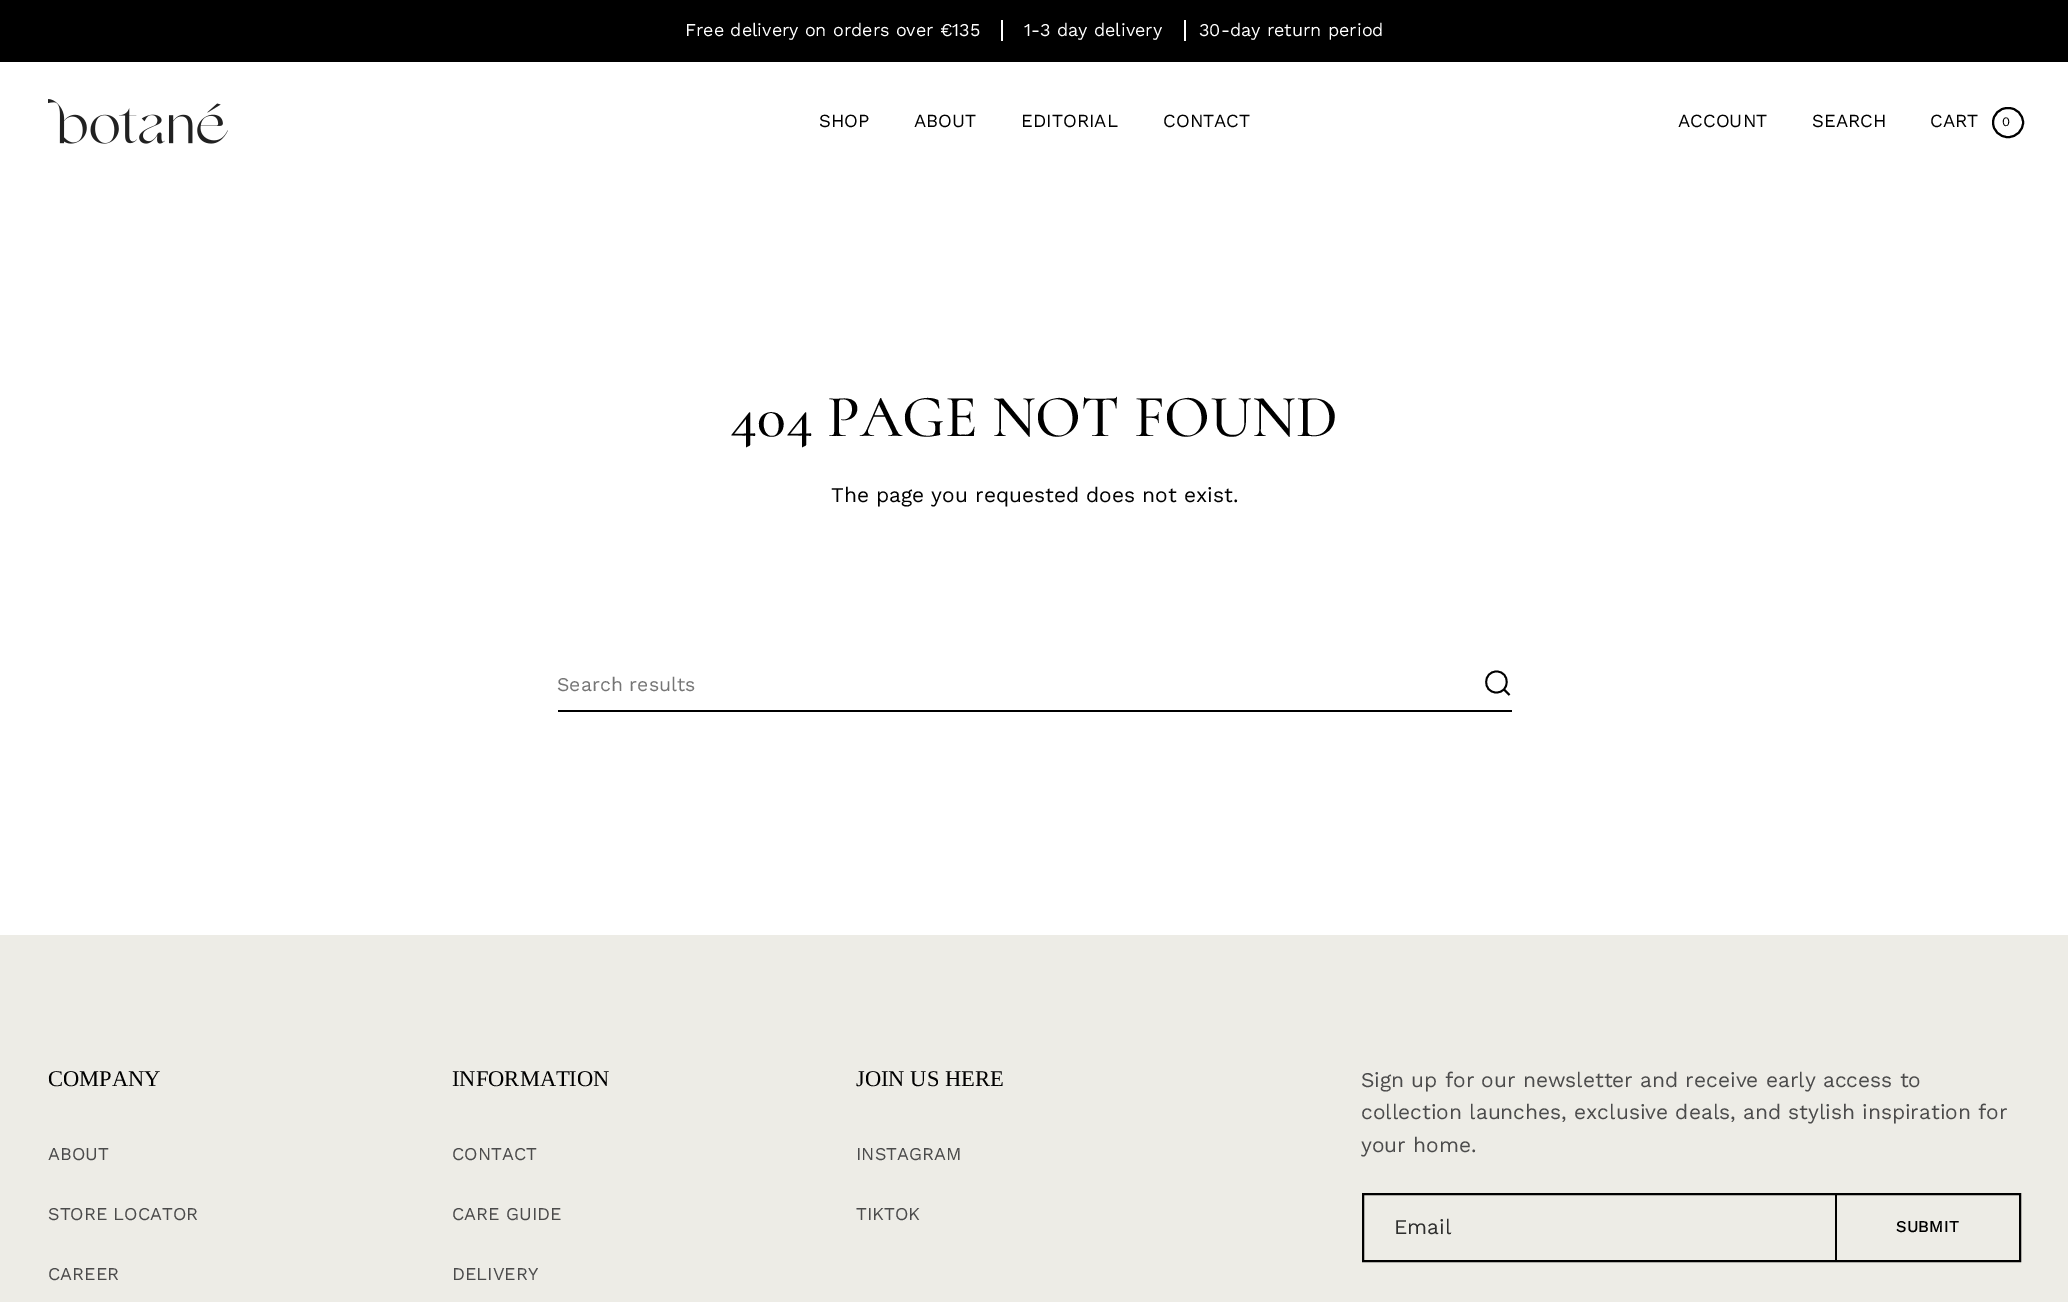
%!PS
<< /PageSize [2068 1302] >> setpagedevice
/rgb { 3 { 255 div 3 1 roll } repeat setrgbcolor } def
/font { [ exch dup neg 0 0 3 -1 roll 0 0 ] selectfont } def
/text { moveto show } def
/roundrect { 5 dict begin { /r /h /w /y /x } { exch def } forall
  x r add y moveto x w add y 2 copy h add r arct x w add y h add x 1 index r arct
  x y h add x y r arct x y 2 copy exch w add exch r arct closepath end } def
/picture { 5 dict begin { /h /w /y /x /name } { exch def } forall
  gsave x y translate w h scale
  w h 8 [w 0 0 h 0 0] name (r) file false 3 colorimage grestore end } def
0 1302 translate 1 -1 scale
4 setmiterlimit
255 255 255 rgb
0 0 2068 1302 rectfill
0 0 0 rgb
0 0 2068 62 rectfill
255 255 255 rgb
1001 20 2 21 rectfill
1184 20 2 21 rectfill
(img_01.rgb) 48 99 180 45 picture
0 0 0 rgb
2 setlinewidth
1993 108 30 29 14.5 roundrect stroke
558 710 954 2 rectfill
1.8 setlinewidth
1496.5 671.5 moveto 14 0 13.5 21.5 -0.5 21 rcurveto -13.5 -0.5 -13 -21 0.5 -21 rcurveto closepath 1504 689.5 moveto 5.5 5.5 rlineto stroke
237 236 230 rgb
0 935 2068 367 rectfill
0 0 0 rgb
2 setlinewidth
1363 1194 657 67 rectstroke
1835 1194 2 66 rectfill
/WorkSans-Regular 18 font
255 255 255 rgb
(Free delivery on orders over €135) 685 36 text
(1-3 day delivery) 1024 36 text
(30-day return period) 1199 36 text
/WorkSans-Regular 18.5 font
0 0 0 rgb
(SHOP) 819 127 text
(ABOUT) 914 127 text
(EDITORIAL) 1021 127 text
(CONTACT) 1163 127 text
(ACCOUNT) 1678 127 text
(SEARCH) 1812 127 text
(CART) 1930 127 text
/WorkSans-Regular 13 font
(0) 2002 126 text
/Cormorant-Medium 60 font
(404 PAGE NOT FOUND) 730 436 text
/WorkSans-Regular 21 font
(The page you requested does not exist.) 831 502 text
/WorkSans-Regular 19.5 font
117 117 117 rgb
(Search results) 557 691 text
/LiberationSerif-Regular 22.5 font
0 0 0 rgb
(COMPANY) 48 1086 text
/WorkSans-Regular 18 font
75 75 75 rgb
(ABOUT) 48 1160 text
(STORE LOCATOR) 48 1220 text
(CAREER) 48 1280 text
/LiberationSerif-Regular 22.5 font
0 0 0 rgb
(INFORMATION) 452 1086 text
/WorkSans-Regular 18 font
75 75 75 rgb
(CONTACT) 452 1160 text
(CARE GUIDE) 452 1220 text
(DELIVERY) 452 1280 text
/LiberationSerif-Regular 22.5 font
0 0 0 rgb
(JOIN US HERE) 856 1086 text
/WorkSans-Regular 18 font
75 75 75 rgb
(INSTAGRAM) 856 1160 text
(TIKTOK) 856 1220 text
/WorkSans-Regular 21 font
(Sign up for our newsletter and receive early access to) 1361 1087 text
(collection launches, exclusive deals, and stylish inspiration for) 1361 1119 text
(your home.) 1361 1152 text
47 47 46 rgb
(Email) 1394 1234 text
/WorkSans-Medium 16.5 font
0 0 0 rgb
(SUBMIT) 1896 1232 text
showpage
